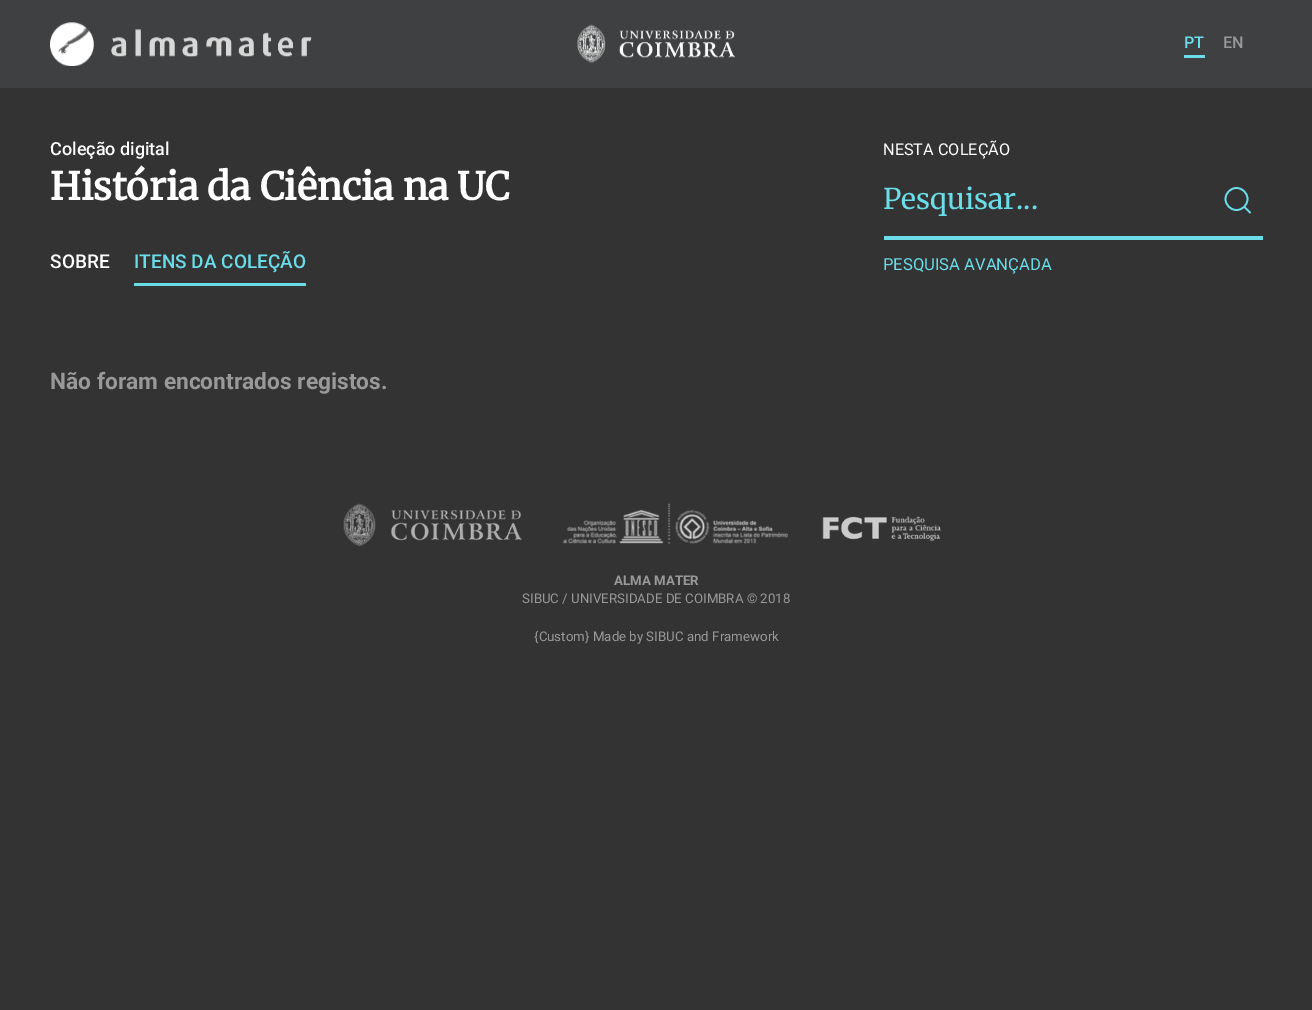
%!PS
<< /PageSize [1312 1010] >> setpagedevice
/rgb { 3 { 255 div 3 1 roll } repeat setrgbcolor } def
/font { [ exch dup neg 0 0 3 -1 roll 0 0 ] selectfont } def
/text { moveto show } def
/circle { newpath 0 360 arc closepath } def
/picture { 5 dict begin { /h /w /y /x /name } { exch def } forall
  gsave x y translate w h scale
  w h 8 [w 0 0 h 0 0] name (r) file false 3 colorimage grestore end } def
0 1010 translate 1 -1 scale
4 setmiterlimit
51 51 51 rgb
0 0 1312 1010 rectfill
63 64 65 rgb
0 0 1312 88 rectfill
(img_01.rgb) 50 22 44 44 picture
(img_02.rgb) 111 29 201 29 picture
(img_03.rgb) 577 24 158 40 picture
107 221 232 rgb
1184 55 21 3 rectfill
134 283 172 3 rectfill
884 236 379 4 rectfill
1.7 setlinewidth
1236.5 199 11 circle stroke
1244.5 207 moveto 6 6 rlineto closepath stroke
(img_04.rgb) 343 503 598 43 picture
/Roboto-Medium 16.25 font
(PT) 1184 48 text
153 153 153 rgb
(EN) 1223 48 text
/Roboto-Medium 18 font
255 255 255 rgb
(Coleção digital) 50 155 text
/Merriweather-Bold 38 font
(História da Ciência na UC) 50 200 text
/Roboto-Medium 19 font
(SOBRE) 50 268 text
107 221 232 rgb
(ITENS DA COLEÇÃO) 134 268 text
/Roboto-Regular 16.25 font
255 255 255 rgb
(NESTA COLEÇÃO) 883 155 text
/Merriweather-Light 28.5 font
107 221 232 rgb
(Pesquisar...) 883 209 text
/Roboto-Regular 16.6 font
(PESQUISA AVANÇADA) 883 270 text
/Roboto-Bold 22.75 font
153 153 153 rgb
(Não foram encontrados registos.) 50 389 text
/Roboto-Bold 13.3 font
(ALMA MATER) 614 585 text
/Roboto-Regular 13.3 font
(SIBUC / UNIVERSIDADE DE COIMBRA © 2018) 522 603 text
({Custom} Made by SIBUC and Framework) 534 641 text
showpage
